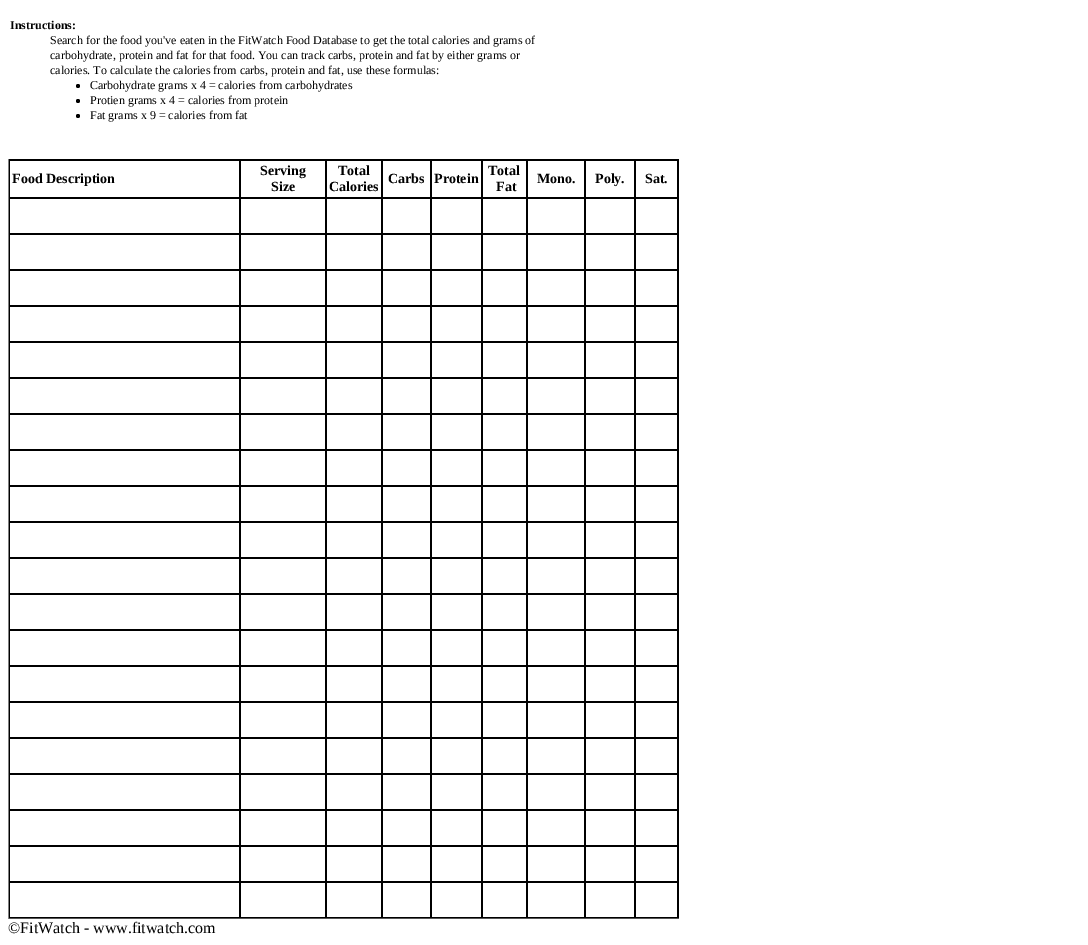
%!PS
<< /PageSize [1088 945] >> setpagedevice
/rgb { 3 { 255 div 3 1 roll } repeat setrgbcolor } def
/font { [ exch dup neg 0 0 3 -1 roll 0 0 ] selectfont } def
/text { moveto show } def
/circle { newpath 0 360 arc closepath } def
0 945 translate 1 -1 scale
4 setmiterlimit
255 255 255 rgb
0 0 1088 945 rectfill
0 0 0 rgb
78 86 2 circle fill
78 101 2 circle fill
78 116 2 circle fill
8 159 671 1 rectfill
678 159 1 760 rectfill
85 85 85 rgb
8 918 671 1 rectfill
128 128 128 rgb
8 159 1 760 rectfill
0 0 0 rgb
9 160 669 1 rectfill
239 160 1 38 rectfill
9 197 231 2 rectfill
9 160 1 38 rectfill
325 160 1 38 rectfill
240 197 86 2 rectfill
240 160 1 38 rectfill
381 160 1 38 rectfill
326 197 56 2 rectfill
326 160 1 38 rectfill
430 160 1 38 rectfill
382 197 49 2 rectfill
382 160 1 38 rectfill
481 160 1 38 rectfill
431 197 51 2 rectfill
431 160 1 38 rectfill
526 160 1 38 rectfill
482 197 45 2 rectfill
482 160 1 38 rectfill
584 160 1 38 rectfill
527 197 58 2 rectfill
527 160 1 38 rectfill
634 160 1 38 rectfill
585 197 50 2 rectfill
585 160 1 38 rectfill
677 160 1 38 rectfill
635 197 43 2 rectfill
635 160 1 38 rectfill
239 198 1 36 rectfill
9 233 231 2 rectfill
9 198 1 36 rectfill
325 198 1 36 rectfill
240 233 86 2 rectfill
240 198 1 36 rectfill
381 198 1 36 rectfill
326 233 56 2 rectfill
326 198 1 36 rectfill
430 198 1 36 rectfill
382 233 49 2 rectfill
382 198 1 36 rectfill
481 198 1 36 rectfill
431 233 51 2 rectfill
431 198 1 36 rectfill
526 198 1 36 rectfill
482 233 45 2 rectfill
482 198 1 36 rectfill
584 198 1 36 rectfill
527 233 58 2 rectfill
527 198 1 36 rectfill
634 198 1 36 rectfill
585 233 50 2 rectfill
585 198 1 36 rectfill
677 198 1 36 rectfill
635 233 43 2 rectfill
635 198 1 36 rectfill
239 234 1 36 rectfill
9 269 231 2 rectfill
9 234 1 36 rectfill
325 234 1 36 rectfill
240 269 86 2 rectfill
240 234 1 36 rectfill
381 234 1 36 rectfill
326 269 56 2 rectfill
326 234 1 36 rectfill
430 234 1 36 rectfill
382 269 49 2 rectfill
382 234 1 36 rectfill
481 234 1 36 rectfill
431 269 51 2 rectfill
431 234 1 36 rectfill
526 234 1 36 rectfill
482 269 45 2 rectfill
482 234 1 36 rectfill
584 234 1 36 rectfill
527 269 58 2 rectfill
527 234 1 36 rectfill
634 234 1 36 rectfill
585 269 50 2 rectfill
585 234 1 36 rectfill
677 234 1 36 rectfill
635 269 43 2 rectfill
635 234 1 36 rectfill
239 270 1 36 rectfill
9 305 231 2 rectfill
9 270 1 36 rectfill
325 270 1 36 rectfill
240 305 86 2 rectfill
240 270 1 36 rectfill
381 270 1 36 rectfill
326 305 56 2 rectfill
326 270 1 36 rectfill
430 270 1 36 rectfill
382 305 49 2 rectfill
382 270 1 36 rectfill
481 270 1 36 rectfill
431 305 51 2 rectfill
431 270 1 36 rectfill
526 270 1 36 rectfill
482 305 45 2 rectfill
482 270 1 36 rectfill
584 270 1 36 rectfill
527 305 58 2 rectfill
527 270 1 36 rectfill
634 270 1 36 rectfill
585 305 50 2 rectfill
585 270 1 36 rectfill
677 270 1 36 rectfill
635 305 43 2 rectfill
635 270 1 36 rectfill
239 306 1 36 rectfill
9 341 231 2 rectfill
9 306 1 36 rectfill
325 306 1 36 rectfill
240 341 86 2 rectfill
240 306 1 36 rectfill
381 306 1 36 rectfill
326 341 56 2 rectfill
326 306 1 36 rectfill
430 306 1 36 rectfill
382 341 49 2 rectfill
382 306 1 36 rectfill
481 306 1 36 rectfill
431 341 51 2 rectfill
431 306 1 36 rectfill
526 306 1 36 rectfill
482 341 45 2 rectfill
482 306 1 36 rectfill
584 306 1 36 rectfill
527 341 58 2 rectfill
527 306 1 36 rectfill
634 306 1 36 rectfill
585 341 50 2 rectfill
585 306 1 36 rectfill
677 306 1 36 rectfill
635 341 43 2 rectfill
635 306 1 36 rectfill
239 342 1 36 rectfill
9 377 231 2 rectfill
9 342 1 36 rectfill
325 342 1 36 rectfill
240 377 86 2 rectfill
240 342 1 36 rectfill
381 342 1 36 rectfill
326 377 56 2 rectfill
326 342 1 36 rectfill
430 342 1 36 rectfill
382 377 49 2 rectfill
382 342 1 36 rectfill
481 342 1 36 rectfill
431 377 51 2 rectfill
431 342 1 36 rectfill
526 342 1 36 rectfill
482 377 45 2 rectfill
482 342 1 36 rectfill
584 342 1 36 rectfill
527 377 58 2 rectfill
527 342 1 36 rectfill
634 342 1 36 rectfill
585 377 50 2 rectfill
585 342 1 36 rectfill
677 342 1 36 rectfill
635 377 43 2 rectfill
635 342 1 36 rectfill
239 378 1 36 rectfill
9 413 231 2 rectfill
9 378 1 36 rectfill
325 378 1 36 rectfill
240 413 86 2 rectfill
240 378 1 36 rectfill
381 378 1 36 rectfill
326 413 56 2 rectfill
326 378 1 36 rectfill
430 378 1 36 rectfill
382 413 49 2 rectfill
382 378 1 36 rectfill
481 378 1 36 rectfill
431 413 51 2 rectfill
431 378 1 36 rectfill
526 378 1 36 rectfill
482 413 45 2 rectfill
482 378 1 36 rectfill
584 378 1 36 rectfill
527 413 58 2 rectfill
527 378 1 36 rectfill
634 378 1 36 rectfill
585 413 50 2 rectfill
585 378 1 36 rectfill
677 378 1 36 rectfill
635 413 43 2 rectfill
635 378 1 36 rectfill
239 414 1 36 rectfill
9 449 231 2 rectfill
9 414 1 36 rectfill
325 414 1 36 rectfill
240 449 86 2 rectfill
240 414 1 36 rectfill
381 414 1 36 rectfill
326 449 56 2 rectfill
326 414 1 36 rectfill
430 414 1 36 rectfill
382 449 49 2 rectfill
382 414 1 36 rectfill
481 414 1 36 rectfill
431 449 51 2 rectfill
431 414 1 36 rectfill
526 414 1 36 rectfill
482 449 45 2 rectfill
482 414 1 36 rectfill
584 414 1 36 rectfill
527 449 58 2 rectfill
527 414 1 36 rectfill
634 414 1 36 rectfill
585 449 50 2 rectfill
585 414 1 36 rectfill
677 414 1 36 rectfill
635 449 43 2 rectfill
635 414 1 36 rectfill
239 450 1 36 rectfill
9 485 231 2 rectfill
9 450 1 36 rectfill
325 450 1 36 rectfill
240 485 86 2 rectfill
240 450 1 36 rectfill
381 450 1 36 rectfill
326 485 56 2 rectfill
326 450 1 36 rectfill
430 450 1 36 rectfill
382 485 49 2 rectfill
382 450 1 36 rectfill
481 450 1 36 rectfill
431 485 51 2 rectfill
431 450 1 36 rectfill
526 450 1 36 rectfill
482 485 45 2 rectfill
482 450 1 36 rectfill
584 450 1 36 rectfill
527 485 58 2 rectfill
527 450 1 36 rectfill
634 450 1 36 rectfill
585 485 50 2 rectfill
585 450 1 36 rectfill
677 450 1 36 rectfill
635 485 43 2 rectfill
635 450 1 36 rectfill
239 486 1 36 rectfill
9 521 231 2 rectfill
9 486 1 36 rectfill
325 486 1 36 rectfill
240 521 86 2 rectfill
240 486 1 36 rectfill
381 486 1 36 rectfill
326 521 56 2 rectfill
326 486 1 36 rectfill
430 486 1 36 rectfill
382 521 49 2 rectfill
382 486 1 36 rectfill
481 486 1 36 rectfill
431 521 51 2 rectfill
431 486 1 36 rectfill
526 486 1 36 rectfill
482 521 45 2 rectfill
482 486 1 36 rectfill
584 486 1 36 rectfill
527 521 58 2 rectfill
527 486 1 36 rectfill
634 486 1 36 rectfill
585 521 50 2 rectfill
585 486 1 36 rectfill
677 486 1 36 rectfill
635 521 43 2 rectfill
635 486 1 36 rectfill
239 522 1 36 rectfill
9 557 231 2 rectfill
9 522 1 36 rectfill
325 522 1 36 rectfill
240 557 86 2 rectfill
240 522 1 36 rectfill
381 522 1 36 rectfill
326 557 56 2 rectfill
326 522 1 36 rectfill
430 522 1 36 rectfill
382 557 49 2 rectfill
382 522 1 36 rectfill
481 522 1 36 rectfill
431 557 51 2 rectfill
431 522 1 36 rectfill
526 522 1 36 rectfill
482 557 45 2 rectfill
482 522 1 36 rectfill
584 522 1 36 rectfill
527 557 58 2 rectfill
527 522 1 36 rectfill
634 522 1 36 rectfill
585 557 50 2 rectfill
585 522 1 36 rectfill
677 522 1 36 rectfill
635 557 43 2 rectfill
635 522 1 36 rectfill
239 558 1 36 rectfill
9 593 231 2 rectfill
9 558 1 36 rectfill
325 558 1 36 rectfill
240 593 86 2 rectfill
240 558 1 36 rectfill
381 558 1 36 rectfill
326 593 56 2 rectfill
326 558 1 36 rectfill
430 558 1 36 rectfill
382 593 49 2 rectfill
382 558 1 36 rectfill
481 558 1 36 rectfill
431 593 51 2 rectfill
431 558 1 36 rectfill
526 558 1 36 rectfill
482 593 45 2 rectfill
482 558 1 36 rectfill
584 558 1 36 rectfill
527 593 58 2 rectfill
527 558 1 36 rectfill
634 558 1 36 rectfill
585 593 50 2 rectfill
585 558 1 36 rectfill
677 558 1 36 rectfill
635 593 43 2 rectfill
635 558 1 36 rectfill
239 594 1 36 rectfill
9 629 231 2 rectfill
9 594 1 36 rectfill
325 594 1 36 rectfill
240 629 86 2 rectfill
240 594 1 36 rectfill
381 594 1 36 rectfill
326 629 56 2 rectfill
326 594 1 36 rectfill
430 594 1 36 rectfill
382 629 49 2 rectfill
382 594 1 36 rectfill
481 594 1 36 rectfill
431 629 51 2 rectfill
431 594 1 36 rectfill
526 594 1 36 rectfill
482 629 45 2 rectfill
482 594 1 36 rectfill
584 594 1 36 rectfill
527 629 58 2 rectfill
527 594 1 36 rectfill
634 594 1 36 rectfill
585 629 50 2 rectfill
585 594 1 36 rectfill
677 594 1 36 rectfill
635 629 43 2 rectfill
635 594 1 36 rectfill
239 630 1 36 rectfill
9 665 231 2 rectfill
9 630 1 36 rectfill
325 630 1 36 rectfill
240 665 86 2 rectfill
240 630 1 36 rectfill
381 630 1 36 rectfill
326 665 56 2 rectfill
326 630 1 36 rectfill
430 630 1 36 rectfill
382 665 49 2 rectfill
382 630 1 36 rectfill
481 630 1 36 rectfill
431 665 51 2 rectfill
431 630 1 36 rectfill
526 630 1 36 rectfill
482 665 45 2 rectfill
482 630 1 36 rectfill
584 630 1 36 rectfill
527 665 58 2 rectfill
527 630 1 36 rectfill
634 630 1 36 rectfill
585 665 50 2 rectfill
585 630 1 36 rectfill
677 630 1 36 rectfill
635 665 43 2 rectfill
635 630 1 36 rectfill
239 666 1 36 rectfill
9 701 231 2 rectfill
9 666 1 36 rectfill
325 666 1 36 rectfill
240 701 86 2 rectfill
240 666 1 36 rectfill
381 666 1 36 rectfill
326 701 56 2 rectfill
326 666 1 36 rectfill
430 666 1 36 rectfill
382 701 49 2 rectfill
382 666 1 36 rectfill
481 666 1 36 rectfill
431 701 51 2 rectfill
431 666 1 36 rectfill
526 666 1 36 rectfill
482 701 45 2 rectfill
482 666 1 36 rectfill
584 666 1 36 rectfill
527 701 58 2 rectfill
527 666 1 36 rectfill
634 666 1 36 rectfill
585 701 50 2 rectfill
585 666 1 36 rectfill
677 666 1 36 rectfill
635 701 43 2 rectfill
635 666 1 36 rectfill
239 702 1 36 rectfill
9 737 231 2 rectfill
9 702 1 36 rectfill
325 702 1 36 rectfill
240 737 86 2 rectfill
240 702 1 36 rectfill
381 702 1 36 rectfill
326 737 56 2 rectfill
326 702 1 36 rectfill
430 702 1 36 rectfill
382 737 49 2 rectfill
382 702 1 36 rectfill
481 702 1 36 rectfill
431 737 51 2 rectfill
431 702 1 36 rectfill
526 702 1 36 rectfill
482 737 45 2 rectfill
482 702 1 36 rectfill
584 702 1 36 rectfill
527 737 58 2 rectfill
527 702 1 36 rectfill
634 702 1 36 rectfill
585 737 50 2 rectfill
585 702 1 36 rectfill
677 702 1 36 rectfill
635 737 43 2 rectfill
635 702 1 36 rectfill
239 738 1 36 rectfill
9 773 231 2 rectfill
9 738 1 36 rectfill
325 738 1 36 rectfill
240 773 86 2 rectfill
240 738 1 36 rectfill
381 738 1 36 rectfill
326 773 56 2 rectfill
326 738 1 36 rectfill
430 738 1 36 rectfill
382 773 49 2 rectfill
382 738 1 36 rectfill
481 738 1 36 rectfill
431 773 51 2 rectfill
431 738 1 36 rectfill
526 738 1 36 rectfill
482 773 45 2 rectfill
482 738 1 36 rectfill
584 738 1 36 rectfill
527 773 58 2 rectfill
527 738 1 36 rectfill
634 738 1 36 rectfill
585 773 50 2 rectfill
585 738 1 36 rectfill
677 738 1 36 rectfill
635 773 43 2 rectfill
635 738 1 36 rectfill
239 774 1 36 rectfill
9 809 231 2 rectfill
9 774 1 36 rectfill
325 774 1 36 rectfill
240 809 86 2 rectfill
240 774 1 36 rectfill
381 774 1 36 rectfill
326 809 56 2 rectfill
326 774 1 36 rectfill
430 774 1 36 rectfill
382 809 49 2 rectfill
382 774 1 36 rectfill
481 774 1 36 rectfill
431 809 51 2 rectfill
431 774 1 36 rectfill
526 774 1 36 rectfill
482 809 45 2 rectfill
482 774 1 36 rectfill
584 774 1 36 rectfill
527 809 58 2 rectfill
527 774 1 36 rectfill
634 774 1 36 rectfill
585 809 50 2 rectfill
585 774 1 36 rectfill
677 774 1 36 rectfill
635 809 43 2 rectfill
635 774 1 36 rectfill
239 810 1 36 rectfill
9 845 231 2 rectfill
9 810 1 36 rectfill
325 810 1 36 rectfill
240 845 86 2 rectfill
240 810 1 36 rectfill
381 810 1 36 rectfill
326 845 56 2 rectfill
326 810 1 36 rectfill
430 810 1 36 rectfill
382 845 49 2 rectfill
382 810 1 36 rectfill
481 810 1 36 rectfill
431 845 51 2 rectfill
431 810 1 36 rectfill
526 810 1 36 rectfill
482 845 45 2 rectfill
482 810 1 36 rectfill
584 810 1 36 rectfill
527 845 58 2 rectfill
527 810 1 36 rectfill
634 810 1 36 rectfill
585 845 50 2 rectfill
585 810 1 36 rectfill
677 810 1 36 rectfill
635 845 43 2 rectfill
635 810 1 36 rectfill
239 846 1 36 rectfill
9 881 231 2 rectfill
9 846 1 36 rectfill
325 846 1 36 rectfill
240 881 86 2 rectfill
240 846 1 36 rectfill
381 846 1 36 rectfill
326 881 56 2 rectfill
326 846 1 36 rectfill
430 846 1 36 rectfill
382 881 49 2 rectfill
382 846 1 36 rectfill
481 846 1 36 rectfill
431 881 51 2 rectfill
431 846 1 36 rectfill
526 846 1 36 rectfill
482 881 45 2 rectfill
482 846 1 36 rectfill
584 846 1 36 rectfill
527 881 58 2 rectfill
527 846 1 36 rectfill
634 846 1 36 rectfill
585 881 50 2 rectfill
585 846 1 36 rectfill
677 846 1 36 rectfill
635 881 43 2 rectfill
635 846 1 36 rectfill
239 882 1 36 rectfill
9 917 231 1 rectfill
9 882 1 36 rectfill
325 882 1 36 rectfill
240 917 86 1 rectfill
240 882 1 36 rectfill
381 882 1 36 rectfill
326 917 56 1 rectfill
326 882 1 36 rectfill
430 882 1 36 rectfill
382 917 49 1 rectfill
382 882 1 36 rectfill
481 882 1 36 rectfill
431 917 51 1 rectfill
431 882 1 36 rectfill
526 882 1 36 rectfill
482 917 45 1 rectfill
482 882 1 36 rectfill
584 882 1 36 rectfill
527 917 58 1 rectfill
527 882 1 36 rectfill
634 882 1 36 rectfill
585 917 50 1 rectfill
585 882 1 36 rectfill
677 882 1 36 rectfill
635 917 43 1 rectfill
635 882 1 36 rectfill
/LiberationSerif-Bold 12 font
(Instructions:) 10 29 text
/LiberationSerif-Regular 12 font
(Search for the food you've eaten in the FitWatch Food Database to get the total calories and grams of) 50 44 text
(carbohydrate, protein and fat for that food. You can track carbs, protein and fat by either grams or) 50 59 text
(calories. To calculate the calories from carbs, protein and fat, use these formulas:) 50 74 text
(Carbohydrate grams x 4 = calories from carbohydrates) 90 89 text
(Protien grams x 4 = calories from protein) 90 104 text
(Fat grams x 9 = calories from fat) 90 119 text
/LiberationSerif-Bold 14 font
(Food Description) 12 183 text
(Serving) 260 175 text
(Size) 271 191 text
(Total) 338 175 text
(Calories) 329 191 text
(Carbs) 388 183 text
(Protein) 434 183 text
(Total) 488 175 text
(Fat) 496 191 text
(Mono.) 537 183 text
(Poly.) 595 183 text
(Sat.) 645 183 text
/LiberationSerif-Regular 16 font
(©FitWatch - www.fitwatch.com) 8 933 text
showpage
